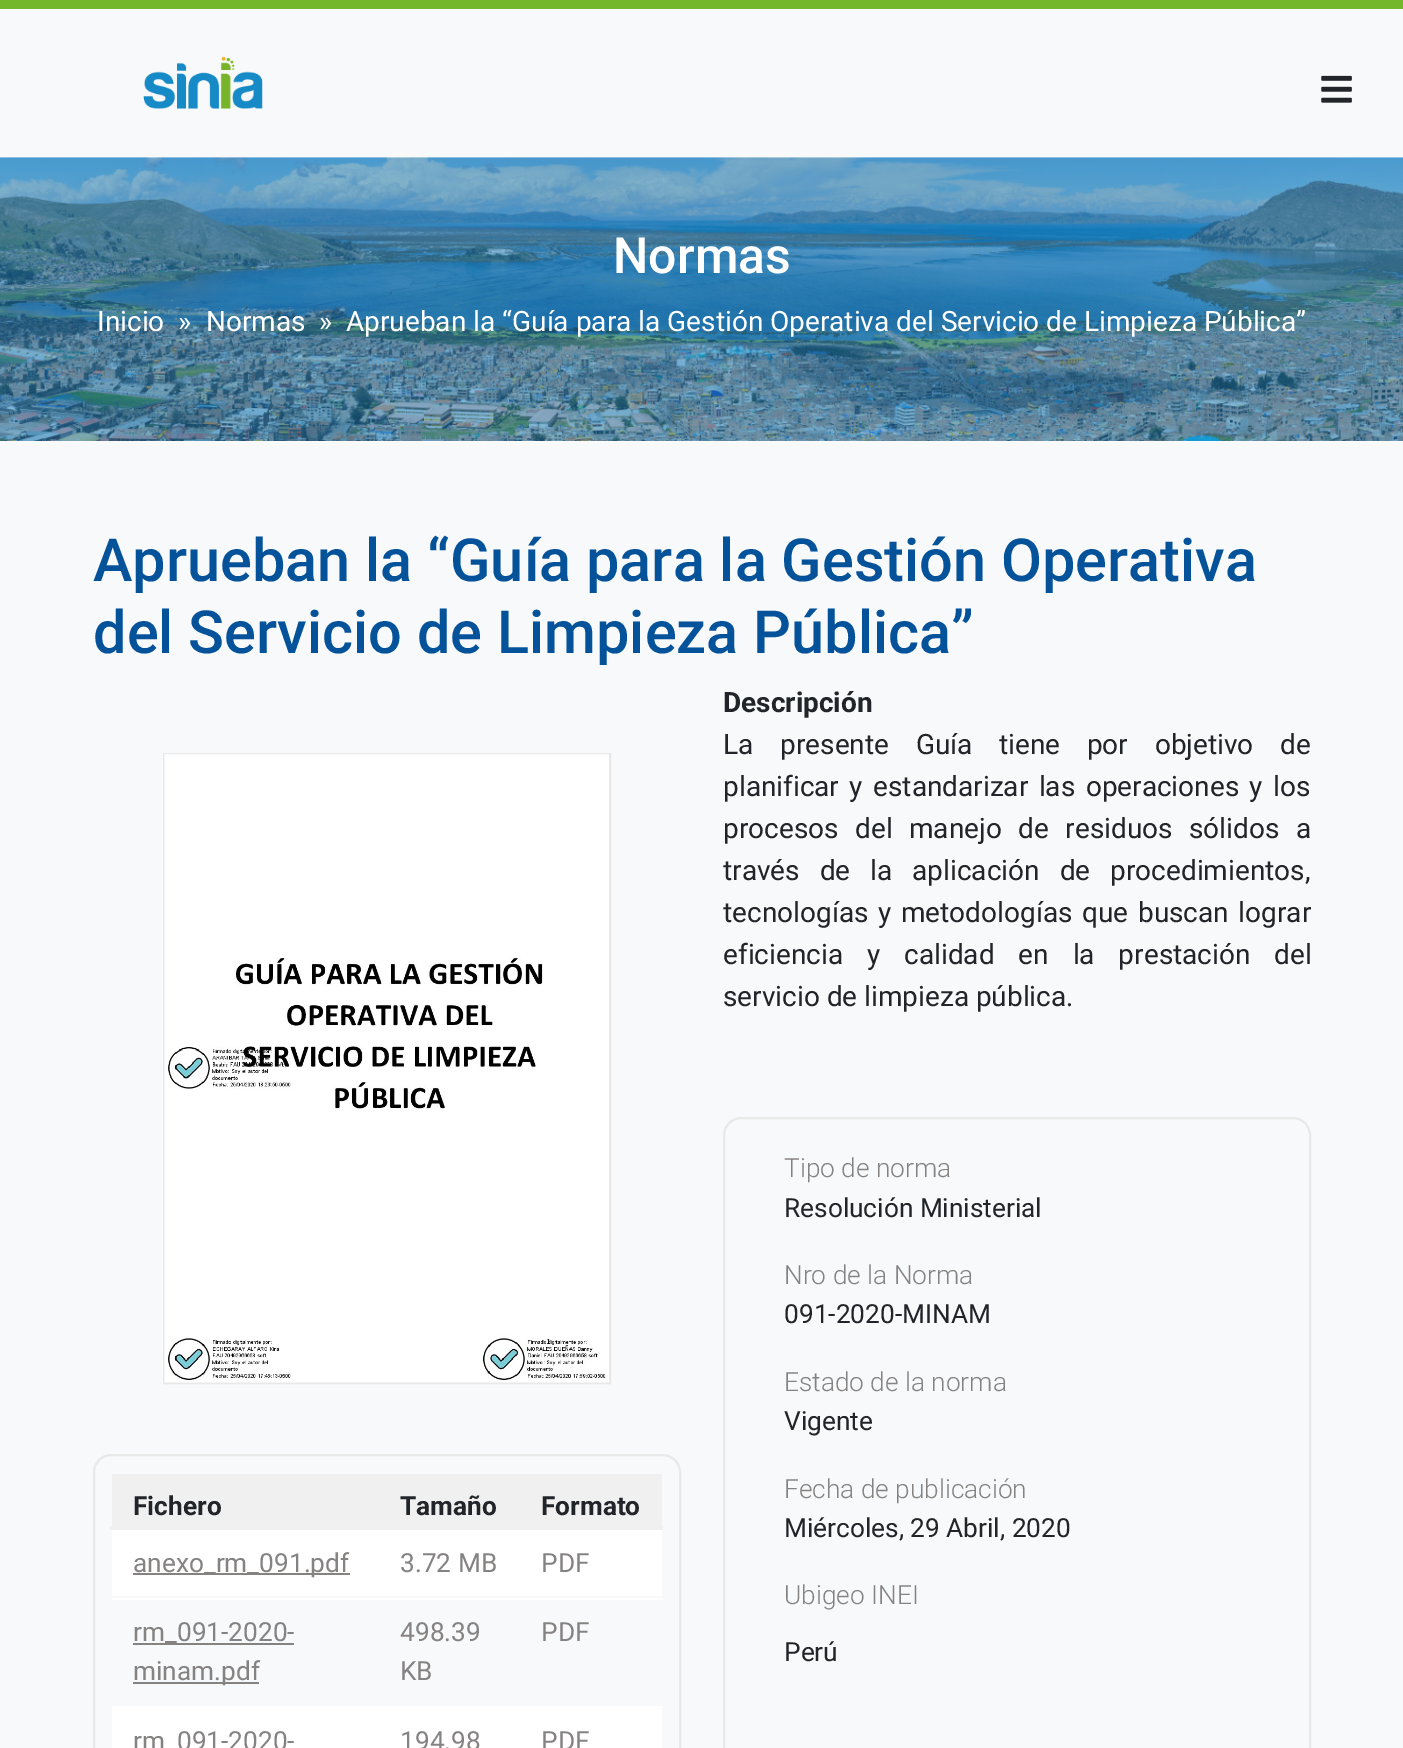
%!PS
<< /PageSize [1403 1748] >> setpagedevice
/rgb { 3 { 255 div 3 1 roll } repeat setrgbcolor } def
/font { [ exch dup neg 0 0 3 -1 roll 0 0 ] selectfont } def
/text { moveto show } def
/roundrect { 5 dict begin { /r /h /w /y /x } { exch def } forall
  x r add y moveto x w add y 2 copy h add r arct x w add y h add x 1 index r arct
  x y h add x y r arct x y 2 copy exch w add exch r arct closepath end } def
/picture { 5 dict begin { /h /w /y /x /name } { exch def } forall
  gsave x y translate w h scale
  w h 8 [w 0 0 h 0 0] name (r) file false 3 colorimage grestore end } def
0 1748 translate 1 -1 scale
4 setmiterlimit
248 249 250 rgb
0 0 1403 1748 rectfill
117 183 42 rgb
0 0 1403 9 rectfill
(img_01.rgb) 143 56 120 53 picture
(img_02.rgb) 1321 75 31 28 picture
(img_03.rgb) 0 157 1403 284 picture
233 233 233 rgb
2 setlinewidth
164 754 446 629 rectstroke
(img_04.rgb) 164 754 445 629 picture
94 1455 586 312 17 roundrect stroke
240 240 240 rgb
112 1474 550 52 rectfill
110 1526 553 4 rectfill
255 255 255 rgb
112 1530 550 66 rectfill
133 130 130 rgb
133 1573 217 2 rectfill
255 255 255 rgb
112 1598 551 2 rectfill
133 130 130 rgb
133 1643 161 2 rectfill
133 1682 126 2 rectfill
255 255 255 rgb
520 1706 143 2 rectfill
112 1706 408 42 rectfill
520 1708 142 40 rectfill
233 233 233 rgb
724 1118 586 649 17 roundrect stroke
/Roboto-Medium 50 font
255 255 255 rgb
(Normas) 613 273 text
/Roboto-Regular 28 font
(Inicio) 97 331 text
(») 178 331 text
(Normas) 206 331 text
(») 319 331 text
(Aprueban la “Guía para la Gestión Operativa del Servicio de Limpieza Pública”) 346 331 text
/Roboto-Medium 59.5 font
4 82 153 rgb
(Aprueban la “Guía para la Gestión Operativa) 93 581 text
(del Servicio de Limpieza Pública”) 93 653 text
/Roboto-Bold 26.25 font
33 37 41 rgb
(Fichero) 133 1515 text
(Tamaño) 400 1515 text
(Formato) 541 1515 text
/Roboto-Regular 26.25 font
133 130 130 rgb
(anexo_rm_091.pdf) 133 1572 text
(3.72 MB) 400 1572 text
(PDF) 541 1572 text
(rm_091-2020-) 133 1641 text
(minam.pdf) 133 1680 text
(498.39) 400 1641 text
(KB) 400 1680 text
(PDF) 541 1641 text
(rm_091-2020-) 133 1750 text
(194.98) 400 1750 text
(PDF) 541 1750 text
/Roboto-Bold 28 font
33 37 41 rgb
(Descripción) 723 712 text
/Roboto-Regular 28 font
723 754 moveto 19.75 0 32 (La presente Guía tiene por objetivo de) widthshow
723 796 moveto 3.5 0 32 (planificar y estandarizar las operaciones y los) widthshow
723 838 moveto 9.5 0 32 (procesos del manejo de residuos sólidos a) widthshow
723 880 moveto 13 0 32 (través de la aplicación de procedimientos,) widthshow
723 922 moveto 2.75 0 32 (tecnologías y metodologías que buscan lograr) widthshow
723 964 moveto 17 0 32 (eficiencia y calidad en la prestación del) widthshow
(servicio de limpieza pública.) 723 1006 text
/Roboto-Light 26.25 font
133 130 130 rgb
(Tipo de norma) 784 1177 text
/Roboto-Regular 26.25 font
33 37 41 rgb
(Resolución Ministerial) 784 1217 text
/Roboto-Light 26.25 font
133 130 130 rgb
(Nro de la Norma) 784 1284 text
/Roboto-Regular 26.25 font
33 37 41 rgb
(091-2020-MINAM) 784 1323 text
/Roboto-Light 26.25 font
133 130 130 rgb
(Estado de la norma) 784 1391 text
/Roboto-Regular 26.25 font
33 37 41 rgb
(Vigente) 784 1430 text
/Roboto-Light 26.25 font
133 130 130 rgb
(Fecha de publicación) 784 1498 text
/Roboto-Regular 26.25 font
33 37 41 rgb
(Miércoles, 29 Abril, 2020) 784 1537 text
/Roboto-Light 26.25 font
133 130 130 rgb
(Ubigeo INEI) 784 1604 text
/Roboto-Regular 26.25 font
33 37 41 rgb
(Perú) 784 1661 text
showpage
